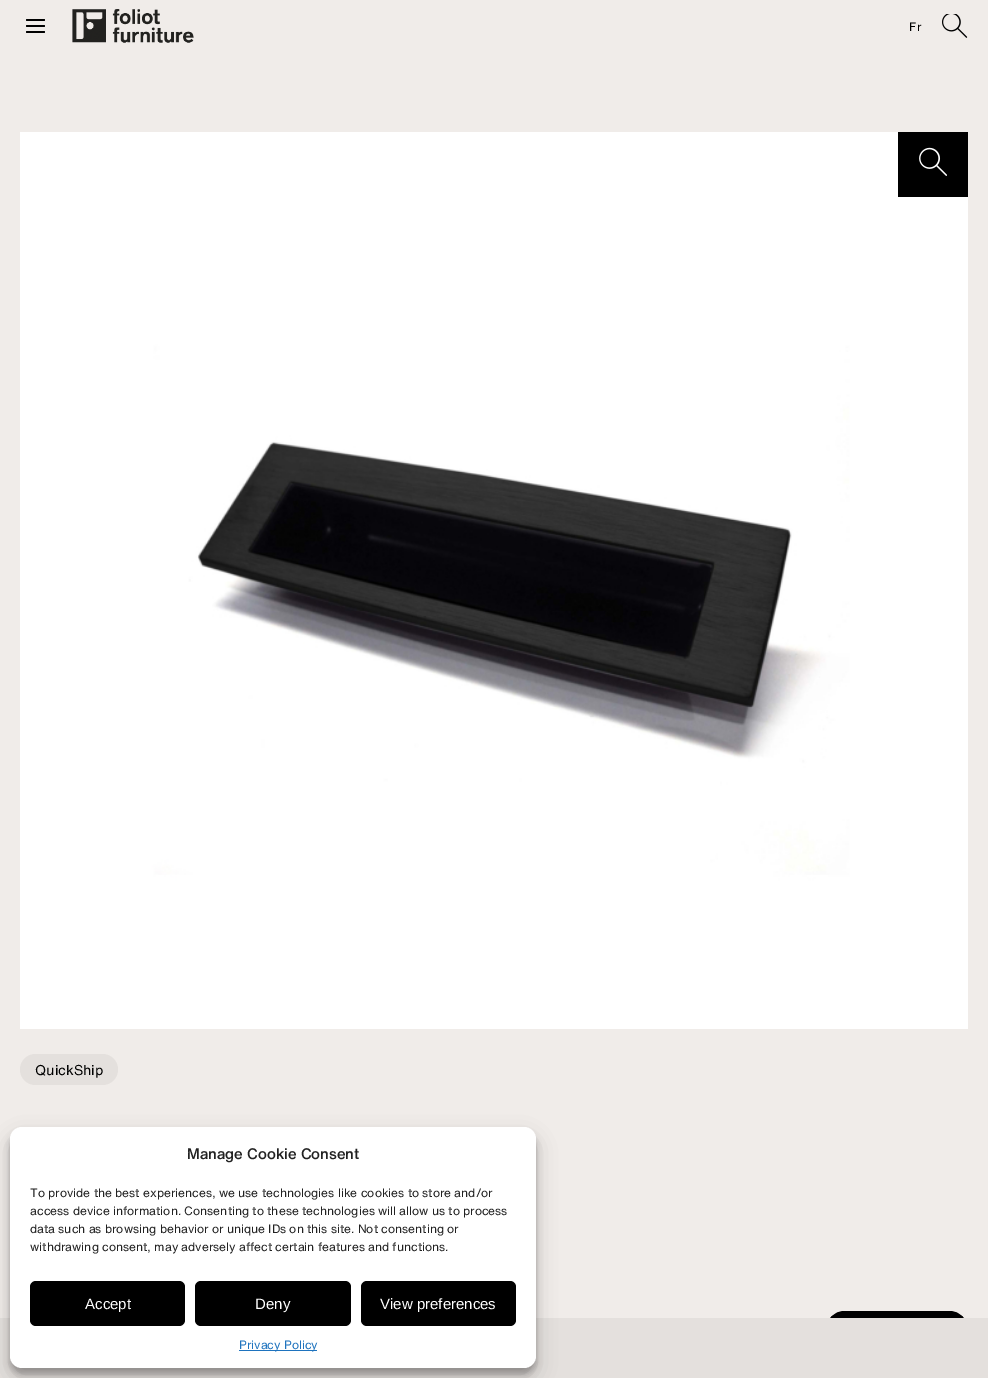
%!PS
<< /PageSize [988 1378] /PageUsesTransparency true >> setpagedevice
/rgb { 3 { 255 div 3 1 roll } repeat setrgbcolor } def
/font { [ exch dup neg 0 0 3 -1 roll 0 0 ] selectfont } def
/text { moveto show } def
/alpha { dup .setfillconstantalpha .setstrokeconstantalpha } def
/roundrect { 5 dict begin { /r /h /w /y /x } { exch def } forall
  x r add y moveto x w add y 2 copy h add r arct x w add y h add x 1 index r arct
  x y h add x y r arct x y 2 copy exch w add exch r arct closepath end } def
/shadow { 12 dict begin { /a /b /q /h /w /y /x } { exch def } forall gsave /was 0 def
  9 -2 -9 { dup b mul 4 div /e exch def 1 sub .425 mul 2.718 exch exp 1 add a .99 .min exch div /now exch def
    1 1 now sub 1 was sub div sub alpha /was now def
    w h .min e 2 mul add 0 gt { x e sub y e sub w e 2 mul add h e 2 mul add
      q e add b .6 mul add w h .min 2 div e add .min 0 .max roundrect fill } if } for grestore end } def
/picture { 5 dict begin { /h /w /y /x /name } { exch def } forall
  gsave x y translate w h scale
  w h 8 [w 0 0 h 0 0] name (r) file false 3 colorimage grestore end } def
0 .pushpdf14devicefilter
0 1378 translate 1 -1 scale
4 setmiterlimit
240 236 233 rgb
0 0 988 1378 rectfill
0 0 0 rgb
26 25 19 2 1 roundrect fill
26 19 19 2 1 roundrect fill
26 31 19 2 1 roundrect fill
(img_01.rgb) 72 9 122 34 picture
(img_02.rgb) 942 14 26 24 picture
(img_03.rgb) 20 132 948 897 picture
898 132 70 65 rectfill
(img_04.rgb) 919 147 28 29 picture
228 224 221 rgb
20 1054 98 31 15.5 roundrect fill
0 0 0 rgb
826.5 1311.5 141 36 18 roundrect gsave fill grestore
stroke
228 224 221 rgb
0 1318 988 60 rectfill
0 0 0 rgb
10 1133 526 241 12 3 0.23 shadow
10 1137 526 241 12 10 0.19 shadow
255 255 255 rgb
10 1127 526 241 12 roundrect fill
0 0 0 rgb
30 1281 155 45 6 roundrect fill
195 1281 156 45 6 roundrect fill
361 1281 155 45 6 roundrect fill
30 115 190 rgb
239 1350 78 1 rectfill
/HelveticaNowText-Regular 12 font
0 0 0 rgb
909 31 moveto 1 0 (Fr) ashow
/HelveticaNowText-Regular 14 font
(QuickShip) 35 1075 text
/HelveticaNowText-Medium 15 font
34 34 34 rgb
(Manage Cookie Consent) 187 1159 text
/HelveticaNowText-Regular 12 font
(To provide the best experiences, we use technologies like cookies to store and/or) 30 1197 text
(access device information. Consenting to these technologies will allow us to process) 30 1215 text
(data such as browsing behavior or unique IDs on this site. Not consenting or) 30 1233 text
(withdrawing consent, may adversely affect certain features and functions.) 30 1251 text
/LiberationSans-Regular 15 font
255 255 255 rgb
(Accept) 85 1309 text
(Deny) 255 1309 text
(View preferences) 380 1309 text
/HelveticaNowText-Regular 12 font
30 115 190 rgb
(Privacy Policy) 239 1349 text
.poppdf14devicefilter showpage
